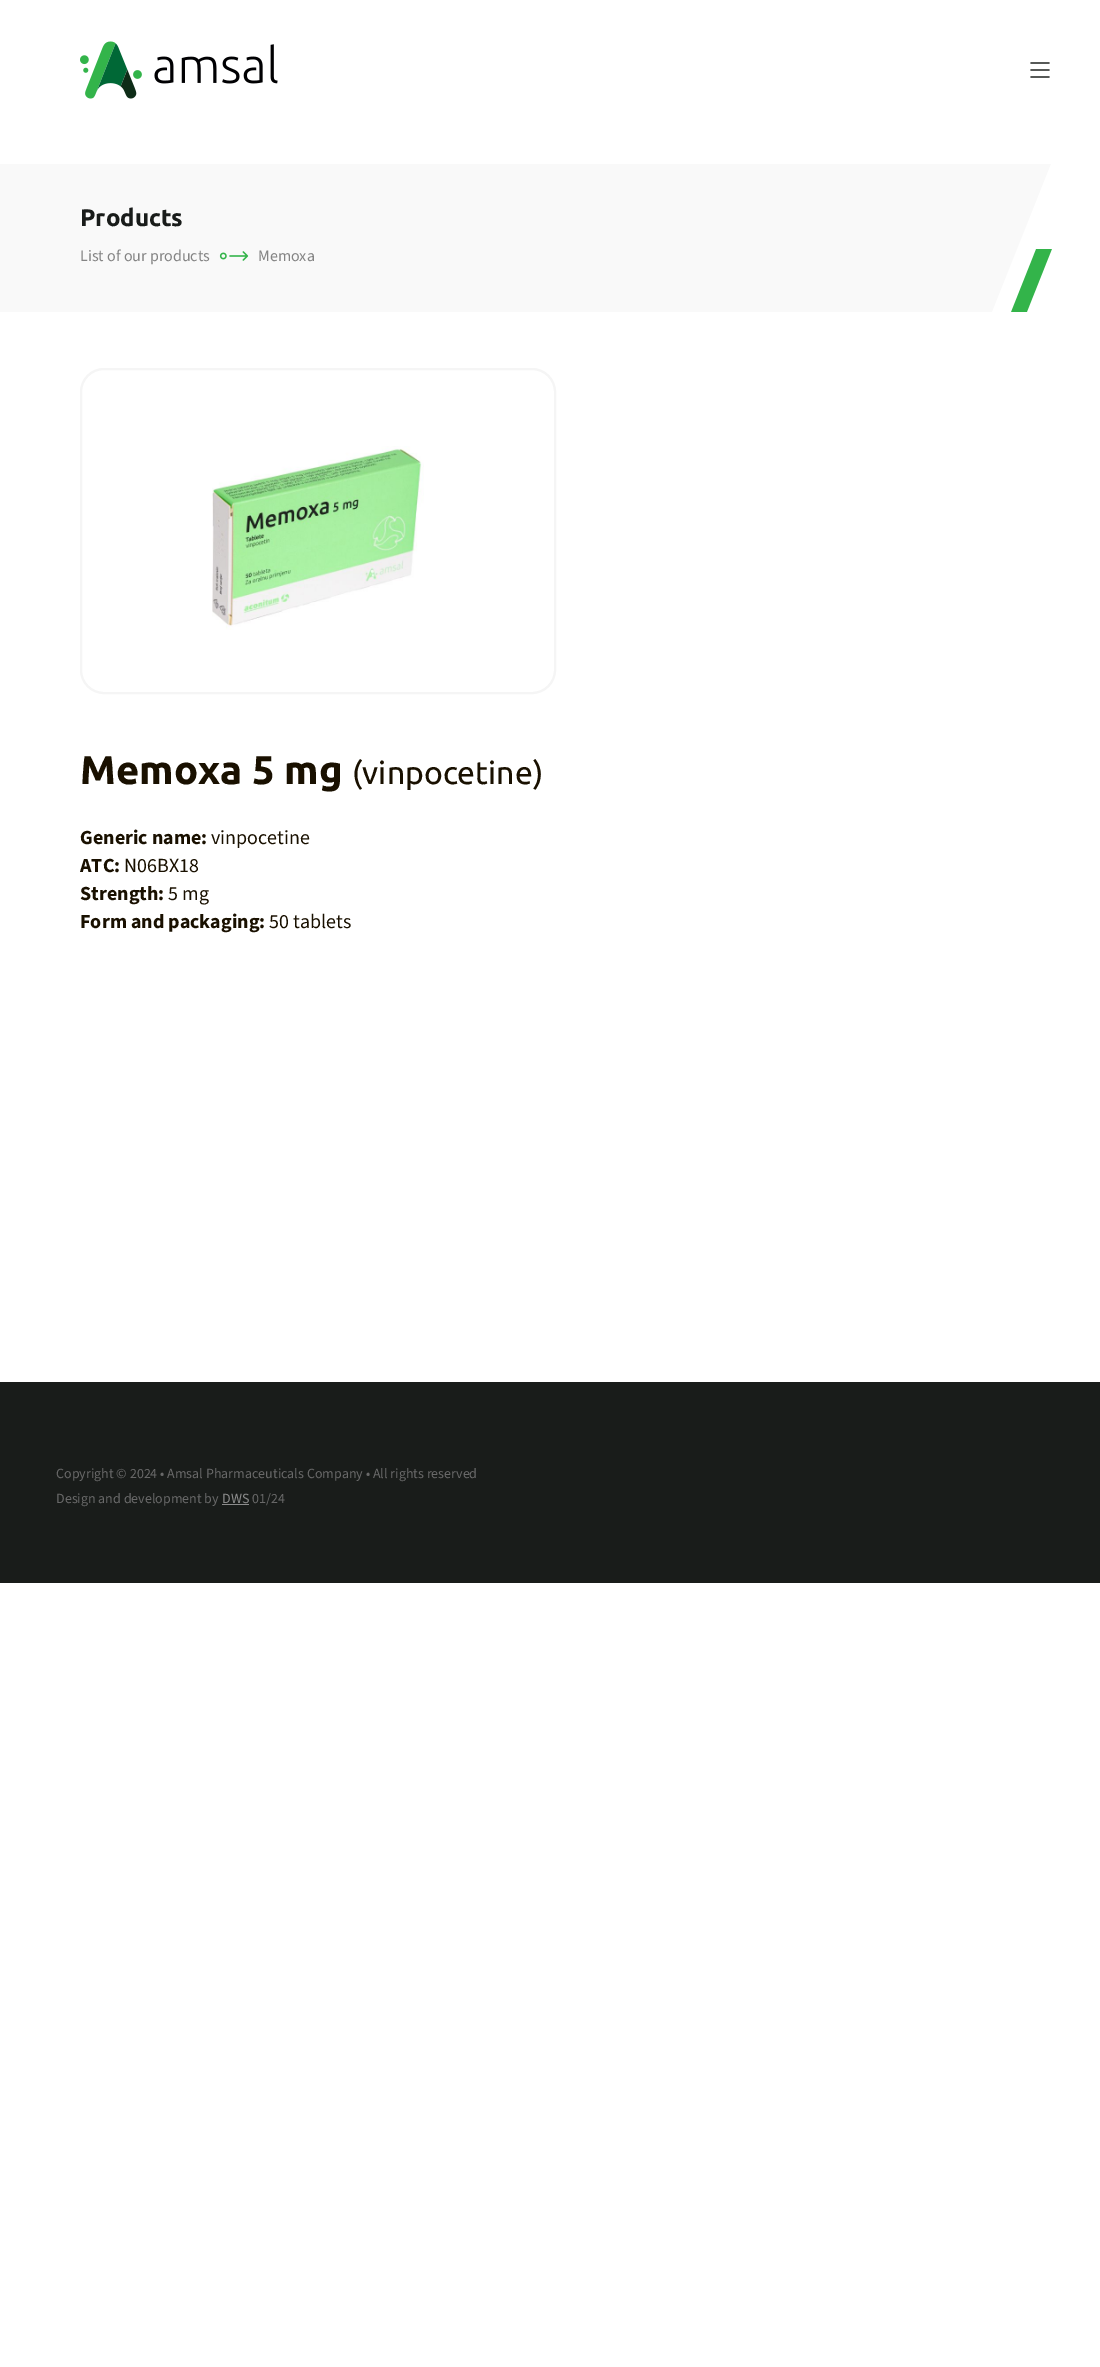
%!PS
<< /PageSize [1100 2367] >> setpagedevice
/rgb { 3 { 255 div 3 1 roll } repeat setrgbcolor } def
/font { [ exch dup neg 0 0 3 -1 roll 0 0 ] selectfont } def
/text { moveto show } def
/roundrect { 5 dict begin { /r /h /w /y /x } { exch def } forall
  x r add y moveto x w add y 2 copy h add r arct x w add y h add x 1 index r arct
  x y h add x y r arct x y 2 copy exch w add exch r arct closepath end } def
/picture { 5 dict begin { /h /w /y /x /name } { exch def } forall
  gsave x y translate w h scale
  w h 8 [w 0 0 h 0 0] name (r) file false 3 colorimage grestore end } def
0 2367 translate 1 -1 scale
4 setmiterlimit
255 255 255 rgb
0 0 1100 2367 rectfill
(img_01.rgb) 80 41 198 58 picture
(img_02.rgb) 1030 62 20 16 picture
249 249 249 rgb
0 164 1051 148 rectfill
(img_03.rgb) 992 164 108 148 picture
(img_04.rgb) 219 251 30 10 picture
245 245 245 rgb
2 setlinewidth
81 369 474 324 23 roundrect stroke
(img_05.rgb) 212 446 212 184 picture
25 28 26 rgb
0 1382 1100 201 rectfill
140 140 140 rgb
222 1504 27 1 rectfill
/Ubuntu-Bold 24 font
25 28 26 rgb
(Products) 80 226 text
/SourceSans3-Regular 16 font
132 132 132 rgb
(List of our products) 80 261 text
(Memoxa) 258 261 text
/Ubuntu-Bold 40 font
25 16 0 rgb
(Memoxa 5 mg) 80 784 text
/Ubuntu-Regular 32 font
(\(vinpocetine\)) 352 784 text
/SourceSans3-Bold 20 font
(Generic name:) 80 844 text
/SourceSans3-Regular 20 font
(vinpocetine) 211 844 text
/SourceSans3-Bold 20 font
(ATC:) 80 872 text
/SourceSans3-Regular 20 font
(N06BX18) 124 872 text
/SourceSans3-Bold 20 font
(Strength:) 80 900 text
/SourceSans3-Regular 20 font
(5 mg) 168 900 text
/SourceSans3-Bold 20 font
(Form and packaging:) 80 928 text
/SourceSans3-Regular 20 font
(50 tablets) 269 928 text
/SourceSans3-Regular 14 font
105 105 105 rgb
(Copyright © 2024 • Amsal Pharmaceuticals Company • All rights reserved) 56 1478 text
(Design and development by) 56 1503 text
140 140 140 rgb
(DWS) 222 1503 text
105 105 105 rgb
(01/24) 252 1503 text
showpage
